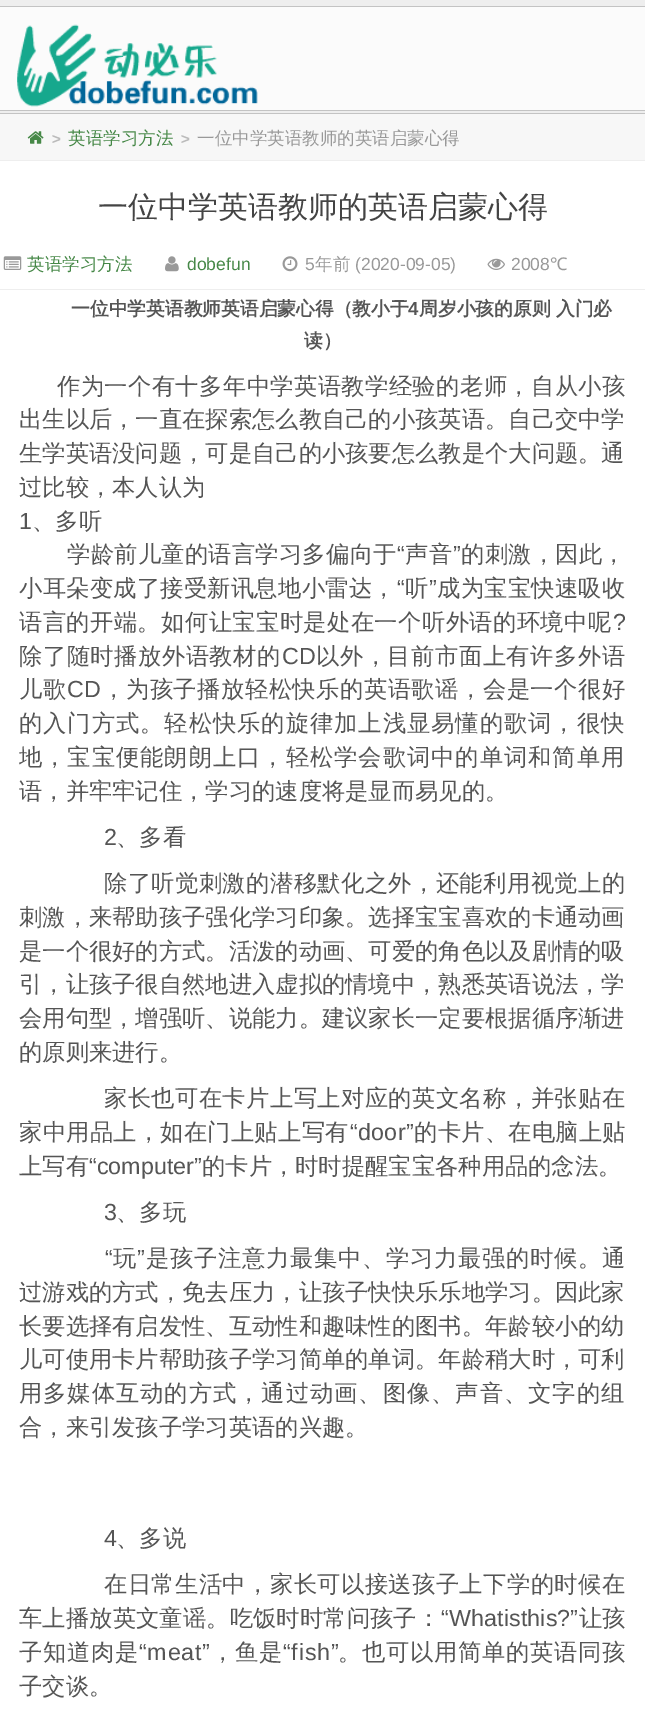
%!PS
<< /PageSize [645 1712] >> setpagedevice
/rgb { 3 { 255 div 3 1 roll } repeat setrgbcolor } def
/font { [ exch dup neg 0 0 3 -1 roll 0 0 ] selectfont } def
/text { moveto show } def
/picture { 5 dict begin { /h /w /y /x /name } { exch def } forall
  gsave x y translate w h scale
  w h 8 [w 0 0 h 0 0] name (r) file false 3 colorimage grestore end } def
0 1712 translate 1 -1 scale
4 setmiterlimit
238 238 238 rgb
0 0 645 1712 rectfill
251 251 251 rgb
0 7 645 103 rectfill
195 195 195 rgb
0 6 645 1 rectfill
0 110 645 1 rectfill
(img_01.rgb) 17 24 241 83 picture
0 113 645 1 rectfill
247 247 247 rgb
0 114 645 46 rectfill
(img_02.rgb) 27 131 17 13 picture
255 255 255 rgb
0 161 645 128 rectfill
(img_03.rgb) 3 256 19 14 picture
(img_04.rgb) 165 256 14 16 picture
(img_05.rgb) 282 256 16 16 picture
(img_06.rgb) 487 258 18 12 picture
0 290 645 1422 rectfill
/LiberationSans-Bold 15 font
187 187 187 rgb
(>) 52 144 text
/WenQuanYiZenHei-Medium 17.5 font
70 136 71 rgb
(英语学习方法) 68 144 text
/LiberationSans-Bold 15 font
187 187 187 rgb
(>) 181 144 text
/WenQuanYiZenHei-Medium 17.5 font
153 153 153 rgb
(一位中学英语教师的英语启蒙心得) 197 144 text
/WenQuanYiZenHei-Medium 30 font
68 68 68 rgb
(一位中学英语教师的英语启蒙心得) 98 217 text
/WenQuanYiZenHei-Medium 17.5 font
70 136 71 rgb
(英语学习方法) 27 270 text
/LiberationSans-Regular 17.5 font
(dobefun) 187 270 text
153 153 153 rgb
(5) 305 270 text
/WenQuanYiZenHei-Medium 17.5 font
(年前) 315 270 text
/LiberationSans-Regular 17.5 font
(\(2020-09-05\)) 355 270 text
(2008) 511 270 text
/NotoSans-Regular 17.5 font
(℃) 550 270 text
/WenQuanYiZenHei-Bold 18.75 font
85 85 85 rgb
(一位中学英语教师英语启蒙心得（教小于) 71 315 text
/LiberationSans-Bold 18.75 font
(4) 408 315 text
/WenQuanYiZenHei-Bold 18.75 font
(周岁小孩的原则 入门必) 419 315 text
(读）) 304 347 text
/WenQuanYiZenHei-Medium 23.3 font
57 394 moveto 0.4 0 (作为一个有十多年中学英语教学经验的老师，自从小孩) ashow
(出生以后，一直在探索怎么教自己的小孩英语。自己交中学) 19 427 text
(生学英语没问题，可是自己的小孩要怎么教是个大问题。通) 19 461 text
(过比较，本人认为) 19 495 text
/LiberationSans-Regular 23.3 font
(1) 19 529 text
/WenQuanYiZenHei-Medium 23.3 font
(、多听) 32 529 text
67 562 moveto 0.25 0 (学龄前儿童的语言学习多偏向于) ashow
/LiberationSans-Regular 23.3 font
397 562 moveto 0.25 0 (“) ashow
/WenQuanYiZenHei-Medium 23.3 font
405 562 moveto 0.25 0 (声音) ashow
/LiberationSans-Regular 23.3 font
453 562 moveto 0.25 0 (”) ashow
/WenQuanYiZenHei-Medium 23.3 font
461 562 moveto 0.25 0 (的刺激，因此，) ashow
19 596 moveto 0.25 0 (小耳朵变成了接受新讯息地小雷达，) ashow
/LiberationSans-Regular 23.3 font
397 596 moveto 0.25 0 (“) ashow
/WenQuanYiZenHei-Medium 23.3 font
405 596 moveto 0.25 0 (听) ashow
/LiberationSans-Regular 23.3 font
429 596 moveto 0.25 0 (”) ashow
/WenQuanYiZenHei-Medium 23.3 font
437 596 moveto 0.25 0 (成为宝宝快速吸收) ashow
19 630 moveto 0.4 0 (语言的开端。如何让宝宝时是处在一个听外语的环境中呢) ashow
/LiberationSans-Regular 23.3 font
613 630 moveto 0.4 0 (?) ashow
/WenQuanYiZenHei-Medium 23.3 font
19 664 moveto 0.5 0 (除了随时播放外语教材的) ashow
/LiberationSans-Regular 23.3 font
282 664 moveto 0.5 0 (CD) ashow
/WenQuanYiZenHei-Medium 23.3 font
316 664 moveto 0.5 0 (以外，目前市面上有许多外语) ashow
19 697 moveto 0.5 0 (儿歌) ashow
/LiberationSans-Regular 23.3 font
67 697 moveto 0.5 0 (CD) ashow
/WenQuanYiZenHei-Medium 23.3 font
102 697 moveto 0.5 0 (，为孩子播放轻松快乐的英语歌谣，会是一个很好) ashow
19 731 moveto 0.95 0 (的入门方式。轻松快乐的旋律加上浅显易懂的歌词，很快) ashow
19 765 moveto 0.95 0 (地，宝宝便能朗朗上口，轻松学会歌词中的单词和简单用) ashow
(语，并牢牢记住，学习的速度将是显而易见的。) 19 799 text
/LiberationSans-Regular 23.3 font
(2) 104 845 text
/WenQuanYiZenHei-Medium 23.3 font
(、多看) 116 845 text
104 891 moveto 0.4 0 (除了听觉刺激的潜移默化之外，还能利用视觉上的) ashow
(刺激，来帮助孩子强化学习印象。选择宝宝喜欢的卡通动画) 19 925 text
(是一个很好的方式。活泼的动画、可爱的角色以及剧情的吸) 19 959 text
(引，让孩子很自然地进入虚拟的情境中，熟悉英语说法，学) 19 992 text
(会用句型，增强听、说能力。建议家长一定要根据循序渐进) 19 1026 text
(的原则来进行。) 19 1060 text
104 1106 moveto 0.4 0 (家长也可在卡片上写上对应的英文名称，并张贴在) ashow
19 1140 moveto 0.25 0 (家中用品上，如在门上贴上写有) ashow
/LiberationSans-Regular 23.3 font
350 1140 moveto 0.25 0 (“door”) ashow
/WenQuanYiZenHei-Medium 23.3 font
414 1140 moveto 0.25 0 (的卡片、在电脑上贴) ashow
(上写有) 19 1174 text
/LiberationSans-Regular 23.3 font
(“computer”) 89 1174 text
/WenQuanYiZenHei-Medium 23.3 font
(的卡片，时时提醒宝宝各种用品的念法。) 202 1174 text
/LiberationSans-Regular 23.3 font
(3) 104 1220 text
/WenQuanYiZenHei-Medium 23.3 font
(、多玩) 116 1220 text
/LiberationSans-Regular 23.3 font
105 1266 moveto 0.7 0 (“) ashow
/WenQuanYiZenHei-Medium 23.3 font
113 1266 moveto 0.7 0 (玩) ashow
/LiberationSans-Regular 23.3 font
137 1266 moveto 0.7 0 (”) ashow
/WenQuanYiZenHei-Medium 23.3 font
146 1266 moveto 0.7 0 (是孩子注意力最集中、学习力最强的时候。通) ashow
(过游戏的方式，免去压力，让孩子快快乐乐地学习。因此家) 19 1300 text
(长要选择有启发性、互动性和趣味性的图书。年龄较小的幼) 19 1334 text
(儿可使用卡片帮助孩子学习简单的单词。年龄稍大时，可利) 19 1367 text
19 1401 moveto 0.95 0 (用多媒体互动的方式，通过动画、图像、声音、文字的组) ashow
(合，来引发孩子学习英语的兴趣。) 19 1435 text
/LiberationSans-Regular 23.3 font
(4) 104 1546 text
/WenQuanYiZenHei-Medium 23.3 font
(、多说) 116 1546 text
104 1592 moveto 0.4 0 (在日常生活中，家长可以接送孩子上下学的时候在) ashow
19 1626 moveto 0.1 0 (车上播放英文童谣。吃饭时时常问孩子：) ashow
/LiberationSans-Regular 23.3 font
441 1626 moveto 0.1 0 (“Whatisthis?”) ashow
/WenQuanYiZenHei-Medium 23.3 font
579 1626 moveto 0.1 0 (让孩) ashow
19 1660 moveto 0.7 0 (子知道肉是) ashow
/LiberationSans-Regular 23.3 font
139 1660 moveto 0.7 0 (“meat”) ashow
/WenQuanYiZenHei-Medium 23.3 font
211 1660 moveto 0.7 0 (，鱼是) ashow
/LiberationSans-Regular 23.3 font
283 1660 moveto 0.7 0 (“fish”) ashow
/WenQuanYiZenHei-Medium 23.3 font
338 1660 moveto 0.7 0 (。也可以用简单的英语同孩) ashow
(子交谈。) 19 1694 text
showpage
